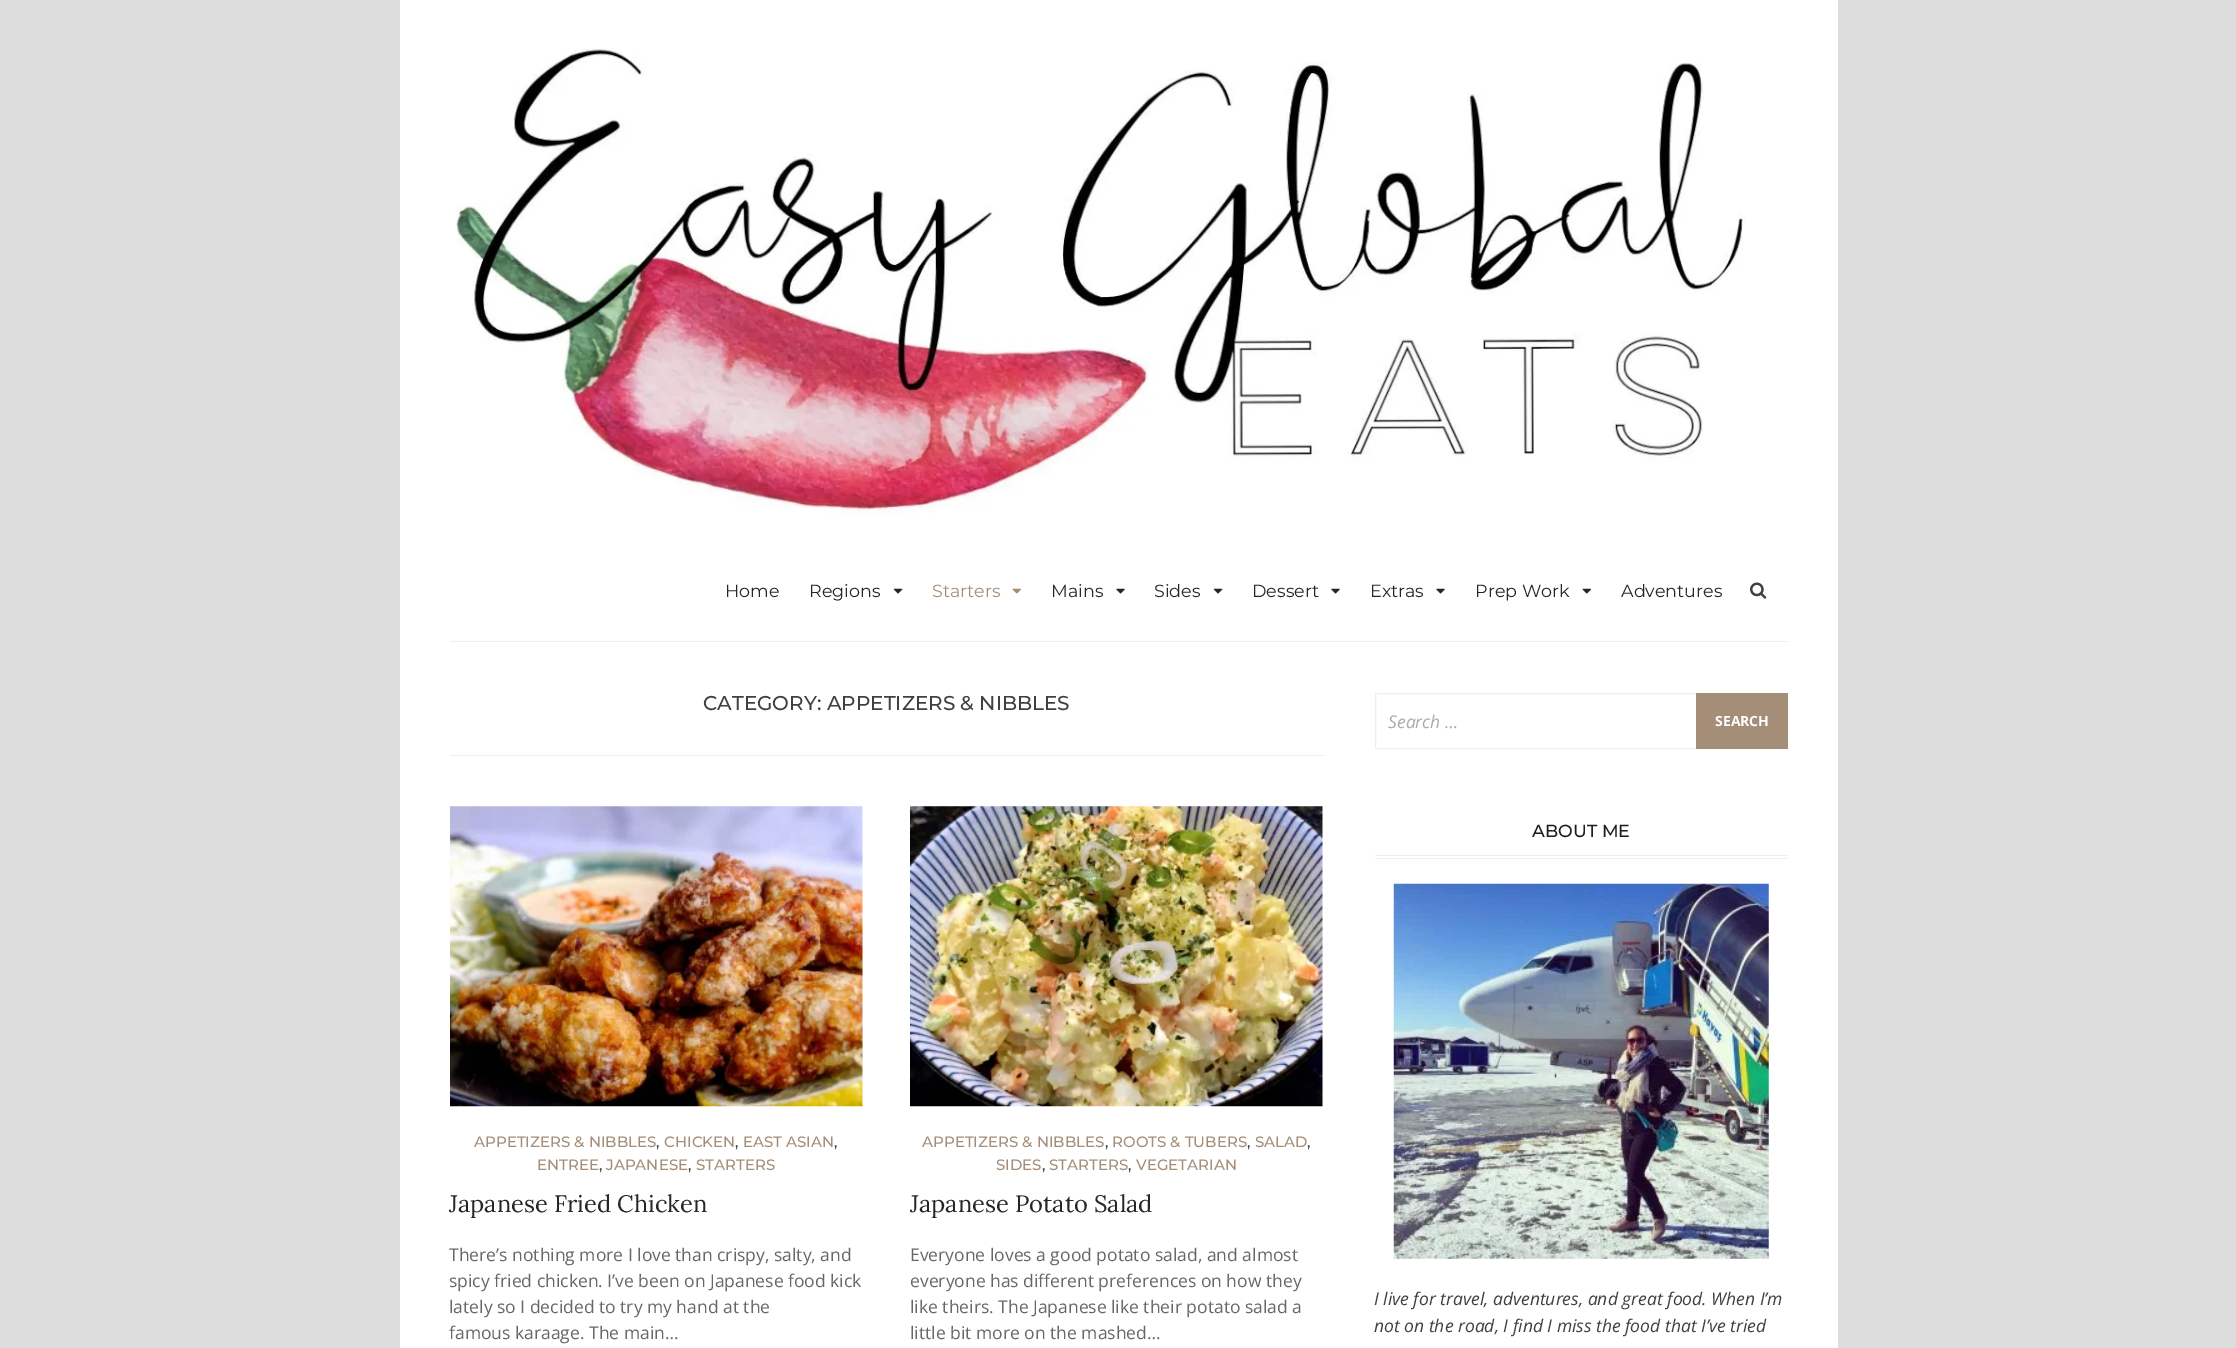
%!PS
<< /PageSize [2236 1348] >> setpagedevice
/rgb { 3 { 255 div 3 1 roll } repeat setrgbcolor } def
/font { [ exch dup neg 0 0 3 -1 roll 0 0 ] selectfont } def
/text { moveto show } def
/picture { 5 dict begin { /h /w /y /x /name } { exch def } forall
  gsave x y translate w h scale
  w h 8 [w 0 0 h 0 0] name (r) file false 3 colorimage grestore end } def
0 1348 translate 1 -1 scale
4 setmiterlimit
221 221 221 rgb
0 0 2236 1348 rectfill
255 255 255 rgb
400 0 1438 1348 rectfill
238 238 238 rgb
450 641 1338 1 rectfill
(img_01.rgb) 456 48 1289 467 picture
(img_02.rgb) 893 588 10 6 picture
(img_03.rgb) 1012 588 9 6 picture
(img_04.rgb) 1116 588 9 6 picture
(img_02.rgb) 1213 588 10 6 picture
(img_04.rgb) 1331 588 9 6 picture
(img_04.rgb) 1436 588 9 6 picture
(img_05.rgb) 1582 588 9 6 picture
(img_06.rgb) 1750 582 17 17 picture
450 755 875 1 rectfill
(img_07.rgb) 450 806 413 301 picture
(img_08.rgb) 910 806 413 301 picture
1375.5 693.5 412 55 rectstroke
165 142 120 rgb
1696 693 92 56 rectfill
238 238 238 rgb
1375 855 413 1 rectfill
1375 858 413 1 rectfill
(img_09.rgb) 1393 883 376 376 picture
/Montserrat-Regular 17.5 font
38 38 38 rgb
(Home) 725 597 text
(Regions) 809 597 text
165 142 120 rgb
(Starters) 932 597 text
38 38 38 rgb
(Mains) 1051 597 text
(Sides) 1154 597 text
(Dessert) 1252 597 text
(Extras) 1370 597 text
(Prep Work) 1475 597 text
(Adventures) 1621 597 text
/Montserrat-Medium 20 font
64 64 64 rgb
(CATEGORY: APPETIZERS & NIBBLES) 703 710 text
/Montserrat-Medium 15 font
165 142 120 rgb
(APPETIZERS & NIBBLES) 474 1147 text
64 64 64 rgb
(,) 656 1147 text
165 142 120 rgb
(CHICKEN) 664 1147 text
64 64 64 rgb
(,) 735 1147 text
165 142 120 rgb
(EAST ASIAN) 743 1147 text
64 64 64 rgb
(,) 834 1147 text
165 142 120 rgb
(ENTREE) 537 1170 text
64 64 64 rgb
(,) 599 1170 text
165 142 120 rgb
(JAPANESE) 606 1170 text
64 64 64 rgb
(,) 688 1170 text
165 142 120 rgb
(STARTERS) 696 1170 text
/Lora-Regular 23.75 font
38 38 38 rgb
(Japanese Fried Chicken) 449 1212 text
/OpenSans-Regular 17.5 font
103 103 103 rgb
(There’s nothing more I love than crispy, salty, and) 449 1261 text
(spicy fried chicken. I’ve been on Japanese food kick) 449 1287 text
(lately so I decided to try my hand at the) 449 1313 text
(famous karaage. The main…) 449 1339 text
/Montserrat-Medium 15 font
165 142 120 rgb
(APPETIZERS & NIBBLES) 922 1147 text
64 64 64 rgb
(,) 1105 1147 text
165 142 120 rgb
(ROOTS & TUBERS) 1112 1147 text
64 64 64 rgb
(,) 1247 1147 text
165 142 120 rgb
(SALAD) 1255 1147 text
64 64 64 rgb
(,) 1307 1147 text
165 142 120 rgb
(SIDES) 996 1170 text
64 64 64 rgb
(,) 1042 1170 text
165 142 120 rgb
(STARTERS) 1049 1170 text
64 64 64 rgb
(,) 1128 1170 text
165 142 120 rgb
(VEGETARIAN) 1136 1170 text
/Lora-Regular 23.75 font
38 38 38 rgb
(Japanese Potato Salad) 910 1212 text
/OpenSans-Regular 17.5 font
103 103 103 rgb
(Everyone loves a good potato salad, and almost) 910 1261 text
(everyone has different preferences on how they) 910 1287 text
(like theirs. The Japanese like their potato salad a) 910 1313 text
(little bit more on the mashed…) 910 1339 text
/OpenSans-Italic 17.5 font
170 170 170 rgb
(Search …) 1388 728 text
/OpenSans-Bold 14 font
255 255 255 rgb
(SEARCH) 1715 726 text
/Montserrat-Medium 17.5 font
29 29 29 rgb
(ABOUT ME) 1532 837 text
/OpenSans-Italic 17.5 font
64 64 64 rgb
(I live for travel, adventures, and great food. When I’m) 1374 1305 text
(not on the road, I find I miss the food that I’ve tried) 1374 1332 text
showpage
